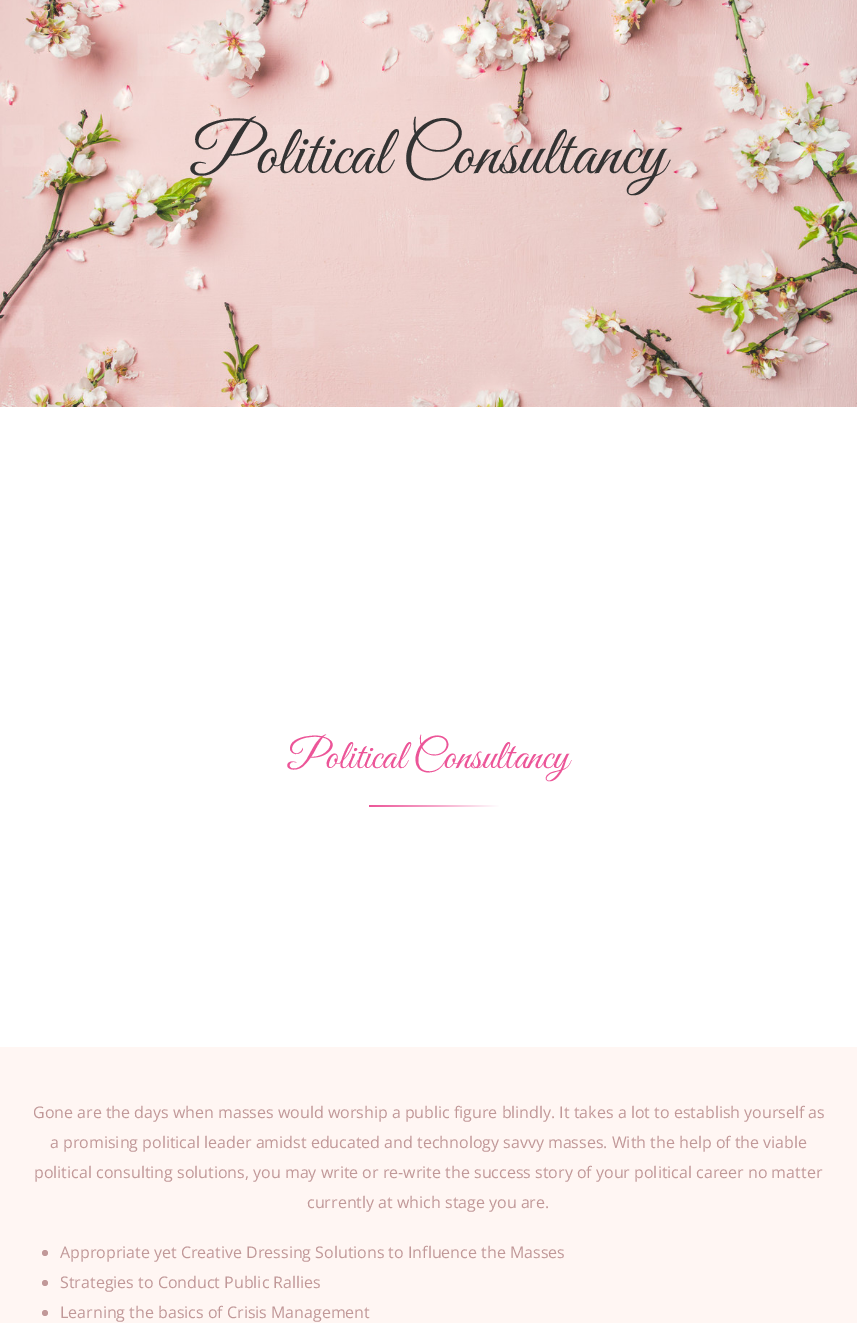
%!PS
<< /PageSize [857 1323] >> setpagedevice
/rgb { 3 { 255 div 3 1 roll } repeat setrgbcolor } def
/font { [ exch dup neg 0 0 3 -1 roll 0 0 ] selectfont } def
/text { moveto show } def
/circle { newpath 0 360 arc closepath } def
/picture { 5 dict begin { /h /w /y /x /name } { exch def } forall
  gsave x y translate w h scale
  w h 8 [w 0 0 h 0 0] name (r) file false 3 colorimage grestore end } def
0 1323 translate 1 -1 scale
4 setmiterlimit
255 255 255 rgb
0 0 857 1323 rectfill
(img_01.rgb) 0 0 857 407 picture
gsave 369 805 moveto 130 0 rlineto 0 2 rlineto -130 0 rlineto closepath clip newpath
<< /ShadingType 2 /ColorSpace /DeviceRGB /Coords [499 812 369 800] /Extend [true true] /Function << /FunctionType 3 /Domain [0 1] /Functions [<< /FunctionType 2 /Domain [0 1] /C0 [1 1 1] /C1 [0.98 0.827 0.894] /N 1 >> << /FunctionType 2 /Domain [0 1] /C0 [0.98 0.827 0.894] /C1 [0.965 0.667 0.8] /N 1 >> << /FunctionType 2 /Domain [0 1] /C0 [0.965 0.667 0.8] /C1 [0.925 0.333 0.596] /N 1 >>] /Bounds [0.24 0.46] /Encode [0 1 0 1 0 1] >> >> shfill grestore
255 246 243 rgb
0 1047 857 276 rectfill
193 152 152 rgb
45 1253 3 circle fill
45 1283 3 circle fill
45 1313 3 circle fill
/GreatVibes-Regular 70 font
51 51 51 rgb
(Political Consultancy) 190 173 text
/GreatVibes-Regular 41.5 font
236 85 152 rgb
(Political Consultancy) 287 768 text
/OpenSans-Regular 16 font
193 152 152 rgb
(Gone are the days when masses would worship a public figure blindly. It takes a lot to establish yourself as) 33 1118 text
(a promising political leader amidst educated and technology savvy masses. With the help of the viable) 50 1148 text
(political consulting solutions, you may write or re-write the success story of your political career no matter) 34 1178 text
(currently at which stage you are.) 307 1208 text
(Appropriate yet Creative Dressing Solutions to Influence the Masses) 60 1258 text
(Strategies to Conduct Public Rallies) 60 1288 text
(Learning the basics of Crisis Management) 60 1318 text
showpage
